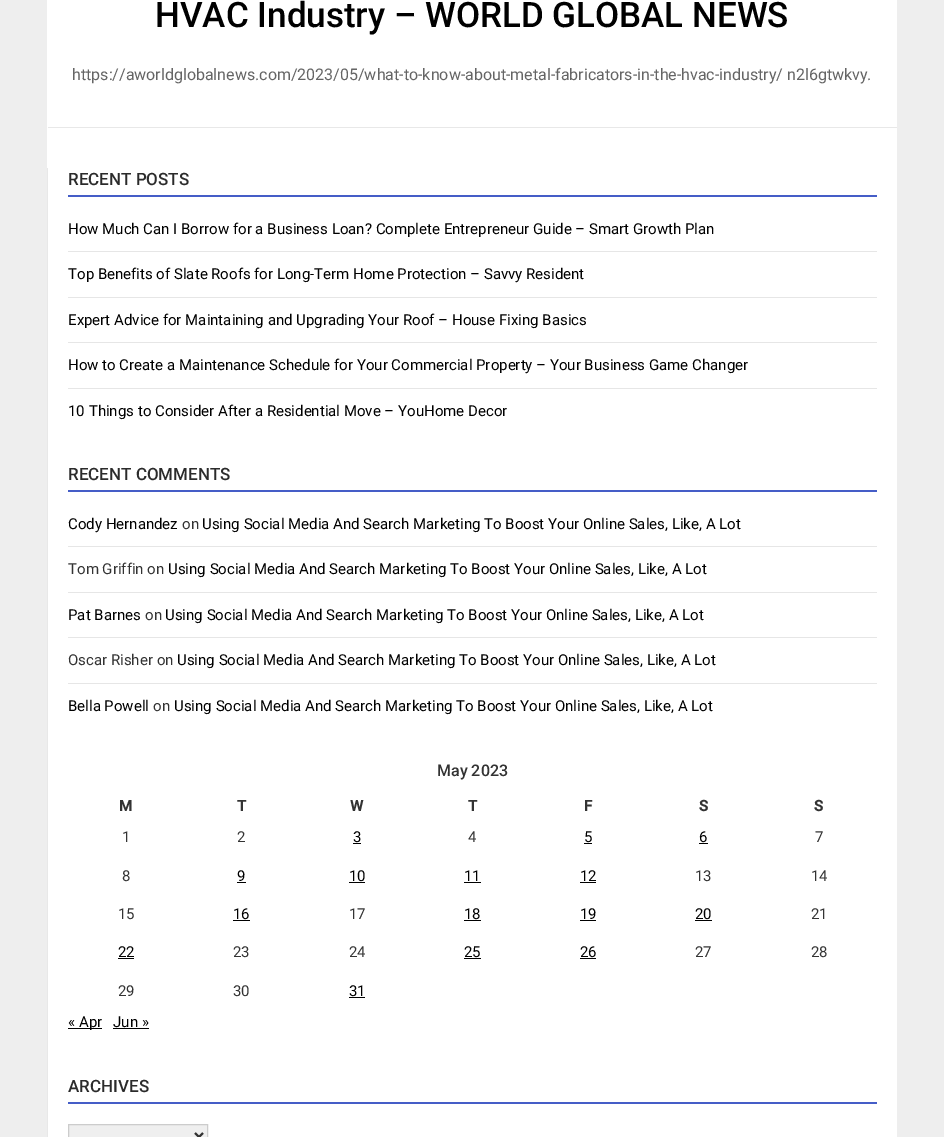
%!PS
<< /PageSize [944 1137] >> setpagedevice
/rgb { 3 { 255 div 3 1 roll } repeat setrgbcolor } def
/font { [ exch dup neg 0 0 3 -1 roll 0 0 ] selectfont } def
/text { moveto show } def
0 1137 translate 1 -1 scale
4 setmiterlimit
238 238 238 rgb
0 0 944 1137 rectfill
255 255 255 rgb
47 0 850 1137 rectfill
232 232 232 rgb
48 127 849 1 rectfill
47 168 1 969 rectfill
69 93 199 rgb
68 195 809 2 rectfill
230 230 230 rgb
68 251 809 1 rectfill
68 297 809 1 rectfill
68 342 809 1 rectfill
68 388 809 1 rectfill
69 93 199 rgb
68 490 809 2 rectfill
230 230 230 rgb
68 546 809 1 rectfill
68 592 809 1 rectfill
68 637 809 1 rectfill
68 683 809 1 rectfill
0 0 0 rgb
353 843 8 1 rectfill
584 843 8 1 rectfill
699 843 9 1 rectfill
237 882 9 1 rectfill
349 882 16 1 rectfill
464 882 17 1 rectfill
580 882 16 1 rectfill
233 920 17 1 rectfill
464 920 17 1 rectfill
580 920 16 1 rectfill
695 920 17 1 rectfill
118 958 16 1 rectfill
464 958 17 1 rectfill
580 958 16 1 rectfill
349 997 16 1 rectfill
68 1028 34 1 rectfill
113 1028 36 1 rectfill
69 93 199 rgb
68 1102 809 2 rectfill
239 239 239 rgb
68.5 1124.5 moveto 139 0 rlineto 0 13 rlineto -139 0 rlineto closepath gsave fill grestore
204 204 204 rgb
stroke
51 51 51 rgb
2 setlinewidth
195 1133 moveto 4 4 rlineto 4 -4 rlineto stroke
/Roboto-Medium 35 font
0 0 0 rgb
(HVAC Industry – WORLD GLOBAL NEWS) 155 27 text
/Roboto-Regular 16 font
101 101 101 rgb
(https://aworldglobalnews.com/2023/05/what-to-know-about-metal-fabricators-in-the-hvac-industry/ n2l6gtwkvy.) 72 80 text
/Roboto-Medium 17 font
43 43 43 rgb
(RECENT POSTS) 68 185 text
/Roboto-Regular 15 font
0 0 0 rgb
(How Much Can I Borrow for a Business Loan? Complete Entrepreneur Guide – Smart Growth Plan) 68 234 text
(Top Benefits of Slate Roofs for Long-Term Home Protection – Savvy Resident) 68 279 text
(Expert Advice for Maintaining and Upgrading Your Roof – House Fixing Basics) 68 325 text
(How to Create a Maintenance Schedule for Your Commercial Property – Your Business Game Changer) 68 370 text
(10 Things to Consider After a Residential Move – YouHome Decor) 68 416 text
/Roboto-Medium 17 font
43 43 43 rgb
(RECENT COMMENTS) 68 480 text
/Roboto-Regular 15 font
0 0 0 rgb
(Cody Hernandez) 68 529 text
51 51 51 rgb
(on) 182 529 text
0 0 0 rgb
(Using Social Media And Search Marketing To Boost Your Online Sales, Like, A Lot) 202 529 text
51 51 51 rgb
(Tom Griffin on) 68 574 text
0 0 0 rgb
(Using Social Media And Search Marketing To Boost Your Online Sales, Like, A Lot) 168 574 text
(Pat Barnes) 68 620 text
51 51 51 rgb
(on) 145 620 text
0 0 0 rgb
(Using Social Media And Search Marketing To Boost Your Online Sales, Like, A Lot) 165 620 text
51 51 51 rgb
(Oscar Risher on) 68 665 text
0 0 0 rgb
(Using Social Media And Search Marketing To Boost Your Online Sales, Like, A Lot) 177 665 text
(Bella Powell) 68 711 text
51 51 51 rgb
(on) 153 711 text
0 0 0 rgb
(Using Social Media And Search Marketing To Boost Your Online Sales, Like, A Lot) 174 711 text
/Roboto-Medium 16 font
51 51 51 rgb
(May 2023) 437 776 text
/Roboto-Bold 15 font
(M) 119 811 text
(T) 237 811 text
(W) 350 811 text
(T) 468 811 text
(F) 584 811 text
(S) 699 811 text
(S) 814 811 text
/Roboto-Regular 15 font
(1) 122 842 text
(2) 237 842 text
0 0 0 rgb
(3) 353 842 text
51 51 51 rgb
(4) 468 842 text
0 0 0 rgb
(5) 584 842 text
(6) 699 842 text
51 51 51 rgb
(7) 815 842 text
(8) 122 881 text
0 0 0 rgb
(9) 237 881 text
(10) 349 881 text
(11) 464 881 text
(12) 580 881 text
51 51 51 rgb
(13) 695 881 text
(14) 811 881 text
(15) 118 919 text
0 0 0 rgb
(16) 233 919 text
51 51 51 rgb
(17) 349 919 text
0 0 0 rgb
(18) 464 919 text
(19) 580 919 text
(20) 695 919 text
51 51 51 rgb
(21) 811 919 text
0 0 0 rgb
(22) 118 957 text
51 51 51 rgb
(23) 233 957 text
(24) 349 957 text
0 0 0 rgb
(25) 464 957 text
(26) 580 957 text
51 51 51 rgb
(27) 695 957 text
(28) 811 957 text
(29) 118 996 text
(30) 233 996 text
0 0 0 rgb
(31) 349 996 text
(« Apr) 68 1027 text
(Jun ») 113 1027 text
/Roboto-Medium 17 font
43 43 43 rgb
(ARCHIVES) 68 1092 text
showpage
